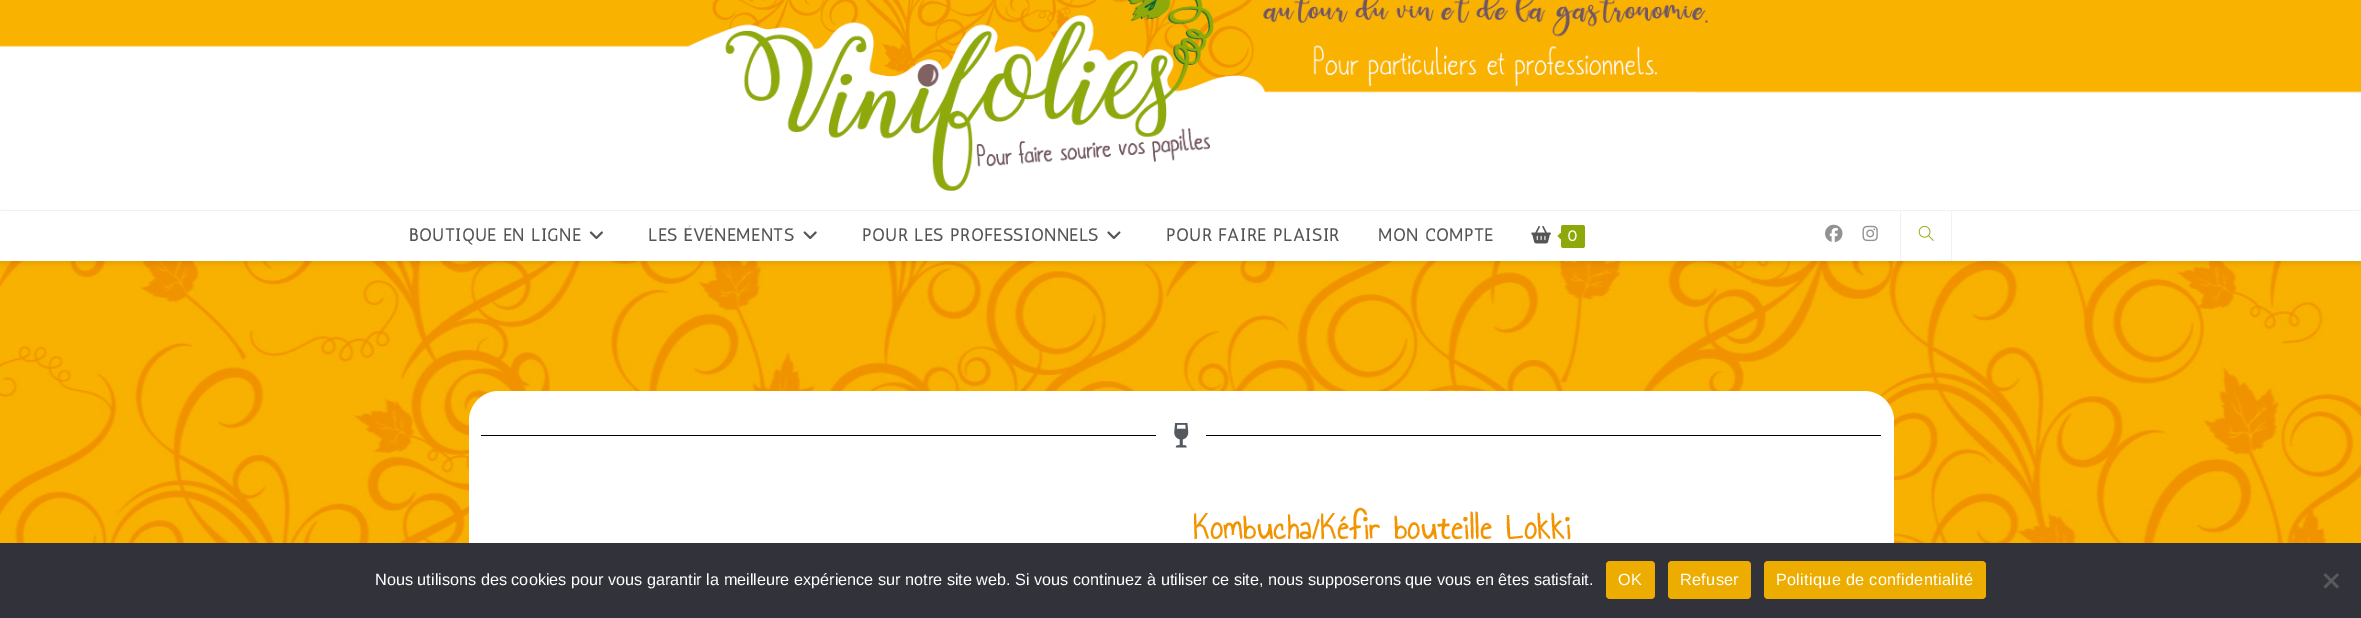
%!PS
<< /PageSize [2361 618] /PageUsesTransparency true >> setpagedevice
/rgb { 3 { 255 div 3 1 roll } repeat setrgbcolor } def
/font { [ exch dup neg 0 0 3 -1 roll 0 0 ] selectfont } def
/text { moveto show } def
/alpha { dup .setfillconstantalpha .setstrokeconstantalpha } def
/roundrect { 5 dict begin { /r /h /w /y /x } { exch def } forall
  x r add y moveto x w add y 2 copy h add r arct x w add y h add x 1 index r arct
  x y h add x y r arct x y 2 copy exch w add exch r arct closepath end } def
/shadow { 12 dict begin { /a /b /q /h /w /y /x } { exch def } forall gsave /was 0 def
  9 -2 -9 { dup b mul 4 div /e exch def 1 sub .425 mul 2.718 exch exp 1 add a .99 .min exch div /now exch def
    1 1 now sub 1 was sub div sub alpha /was now def
    w h .min e 2 mul add 0 gt { x e sub y e sub w e 2 mul add h e 2 mul add
      q e add b .6 mul add w h .min 2 div e add .min 0 .max roundrect fill } if } for grestore end } def
/picture { 5 dict begin { /h /w /y /x /name } { exch def } forall
  gsave x y translate w h scale
  w h 8 [w 0 0 h 0 0] name (r) file false 3 colorimage grestore end } def
0 .pushpdf14devicefilter
0 618 translate 1 -1 scale
4 setmiterlimit
255 255 255 rgb
0 0 2361 618 rectfill
(img_01.rgb) 0 261 2361 282 picture
0 0 0 rgb
0 213 2361 50 0 3 0.1 shadow
255 255 255 rgb
3 209 2355 1 rectfill
241 241 241 rgb
0 210 2361 1 rectfill
(img_02.rgb) 0 0 2361 191 picture
255 255 255 rgb
0 211 2361 50 rectfill
(img_03.rgb) 589 231 14 8 picture
(img_04.rgb) 803 231 14 8 picture
(img_05.rgb) 1107 231 14 8 picture
(img_06.rgb) 1531 226 20 18 picture
141 169 9 rgb
1561 225 24 23 2.5 roundrect fill
1564 230 moveto 0 12.5 rlineto -6.5 -6.5 rlineto closepath fill
(img_07.rgb) 1825 224 18 18 picture
(img_08.rgb) 1862 225 16 17 picture
241 241 241 rgb
1951 211 1 50 rectfill
1900 211 1 50 rectfill
(img_09.rgb) 1918 225 16 16 picture
255 255 255 rgb
469 391 1425 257 30 roundrect fill
0 0 0 rgb
481 435 675 1 rectfill
(img_10.rgb) 1174 423 15 25 picture
1206 435 675 1 rectfill
50 50 58 rgb
0 543 2361 75 rectfill
237 173 0 rgb
1606 561 49 38 4 roundrect fill
1668 561 83 38 4 roundrect fill
1764 561 222 38 4 roundrect fill
89 89 93 rgb
2337 573.5 moveto 2 1.5 rlineto -13.5 13.5 rlineto -2 -2 rlineto closepath fill
2323.5 575 moveto 2 -1.5 rlineto 13.5 13 rlineto -2 2 rlineto closepath fill
/Antic-Bold 17.5 font
85 85 85 rgb
409 241 moveto 0.75 0 (BOUTIQUE EN LIGNE) ashow
648 241 moveto 0.75 0 (LES ÉVÉNEMENTS) ashow
862 241 moveto 0.75 0 (POUR LES PROFESSIONNELS) ashow
1166 241 moveto 0.75 0 (POUR FAIRE PLAISIR) ashow
1378 241 moveto 0.75 0 (MON COMPTE) ashow
/Antic-Bold 15 font
255 255 255 rgb
1567 241 moveto 0.75 0 (0) ashow
/AnnieUseYourTelescope-Bold 35 font
242 148 0 rgb
1193 539 moveto 0.75 0 (Kombucha/Kéfir bouteille Lokki) ashow
/LiberationSans-Regular 16.25 font
255 255 255 rgb
(Nous utilisons des cookies pour vous garantir la meilleure expérience sur notre site web. Si vous continuez à utiliser ce site, nous supposerons que vous en êtes satisfait.) 375 585 text
1618 585 moveto 0.3 0 (OK) ashow
1680 585 moveto 0.3 0 (Refuser) ashow
1776 585 moveto 0.3 0 (Politique de confidentialité) ashow
.poppdf14devicefilter showpage
